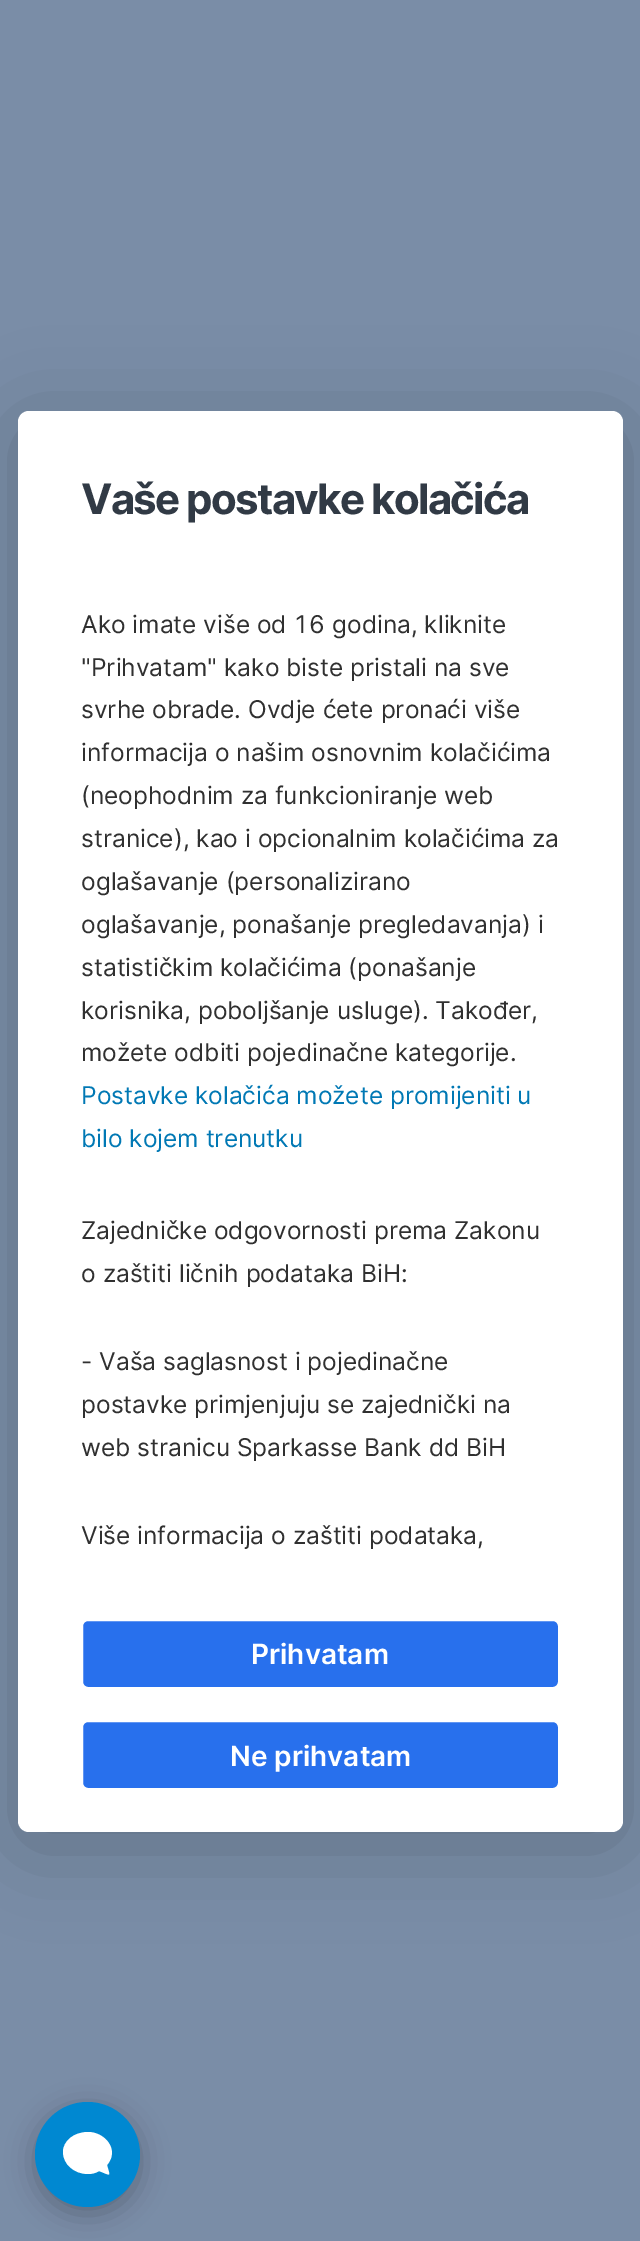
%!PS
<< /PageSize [640 2241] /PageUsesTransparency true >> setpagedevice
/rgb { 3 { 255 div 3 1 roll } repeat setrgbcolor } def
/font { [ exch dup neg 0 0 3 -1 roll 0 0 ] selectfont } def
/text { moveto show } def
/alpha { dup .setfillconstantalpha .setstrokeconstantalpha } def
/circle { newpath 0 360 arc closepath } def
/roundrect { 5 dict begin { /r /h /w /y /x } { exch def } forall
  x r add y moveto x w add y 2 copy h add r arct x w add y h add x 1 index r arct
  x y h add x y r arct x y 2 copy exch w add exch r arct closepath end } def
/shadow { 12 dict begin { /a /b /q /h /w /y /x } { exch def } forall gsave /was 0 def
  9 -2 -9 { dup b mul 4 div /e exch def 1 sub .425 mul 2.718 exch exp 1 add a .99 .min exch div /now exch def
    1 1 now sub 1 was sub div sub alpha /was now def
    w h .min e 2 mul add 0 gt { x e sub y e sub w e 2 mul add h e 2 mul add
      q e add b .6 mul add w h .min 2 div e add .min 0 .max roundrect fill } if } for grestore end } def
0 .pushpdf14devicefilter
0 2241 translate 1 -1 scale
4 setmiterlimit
122 141 167 rgb
0 0 640 2241 rectfill
0 0 0 rgb
18 424 605 1421 11 44 0.2 shadow
255 255 255 rgb
18 411 605 1421 11 roundrect fill
40 112 237 rgb
82 1620 477 68 6 roundrect gsave fill grestore
255 255 255 rgb
2 setlinewidth
stroke
40 112 237 rgb
82 1721 477 68 6 roundrect gsave fill grestore
255 255 255 rgb
stroke
0 0 0 rgb
35 2109 105 105 52.5 14 0.25 shadow
0 136 209 rgb
87.5 2154.5 52.5 circle fill
255 255 255 rgb
88 2132 moveto 17 0 32 18 19 33 rcurveto 3 12 5 11 -8 6 rcurveto -3 2 -7 3 -11 3 rcurveto -14 0 -25 -10 -25 -22 rcurveto 0 -11 11 -20 25 -20 rcurveto closepath fill
/Inter-Bold 42 font
49 58 69 rgb
81 514 moveto -1.75 0 (Vaše postavke kolačića) ashow
/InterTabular-Regular 24.5 font
48 48 48 rgb
(Ako imate više od 16 godina, kliknite) 81 633 text
/Inter-Regular 24.5 font
("Prihvatam" kako biste pristali na sve) 81 676 text
(svrhe obrade. Ovdje ćete pronaći više) 81 718 text
(informacija o našim osnovnim kolačićima) 81 761 text
(\(neophodnim za funkcioniranje web) 81 804 text
(stranice\), kao i opcionalnim kolačićima za) 81 847 text
(oglašavanje \(personalizirano) 81 890 text
(oglašavanje, ponašanje pregledavanja\) i) 81 933 text
(statističkim kolačićima \(ponašanje) 81 976 text
(korisnika, poboljšanje usluge\). Također,) 81 1019 text
(možete odbiti pojedinačne kategorije.) 81 1061 text
0 120 180 rgb
(Postavke kolačića možete promijeniti u) 81 1104 text
(bilo kojem trenutku) 81 1147 text
48 48 48 rgb
(Zajedničke odgovornosti prema Zakonu) 81 1239 text
(o zaštiti ličnih podataka BiH:) 81 1282 text
(- Vaša saglasnost i pojedinačne) 81 1370 text
(postavke primjenjuju se zajednički na) 81 1413 text
(web stranicu Sparkasse Bank dd BiH) 81 1456 text
(Više informacija o zaštiti podataka,) 81 1544 text
/Inter-SemiBold 28 font
255 255 255 rgb
(Prihvatam) 251 1664 text
(Ne prihvatam) 230 1766 text
.poppdf14devicefilter showpage
